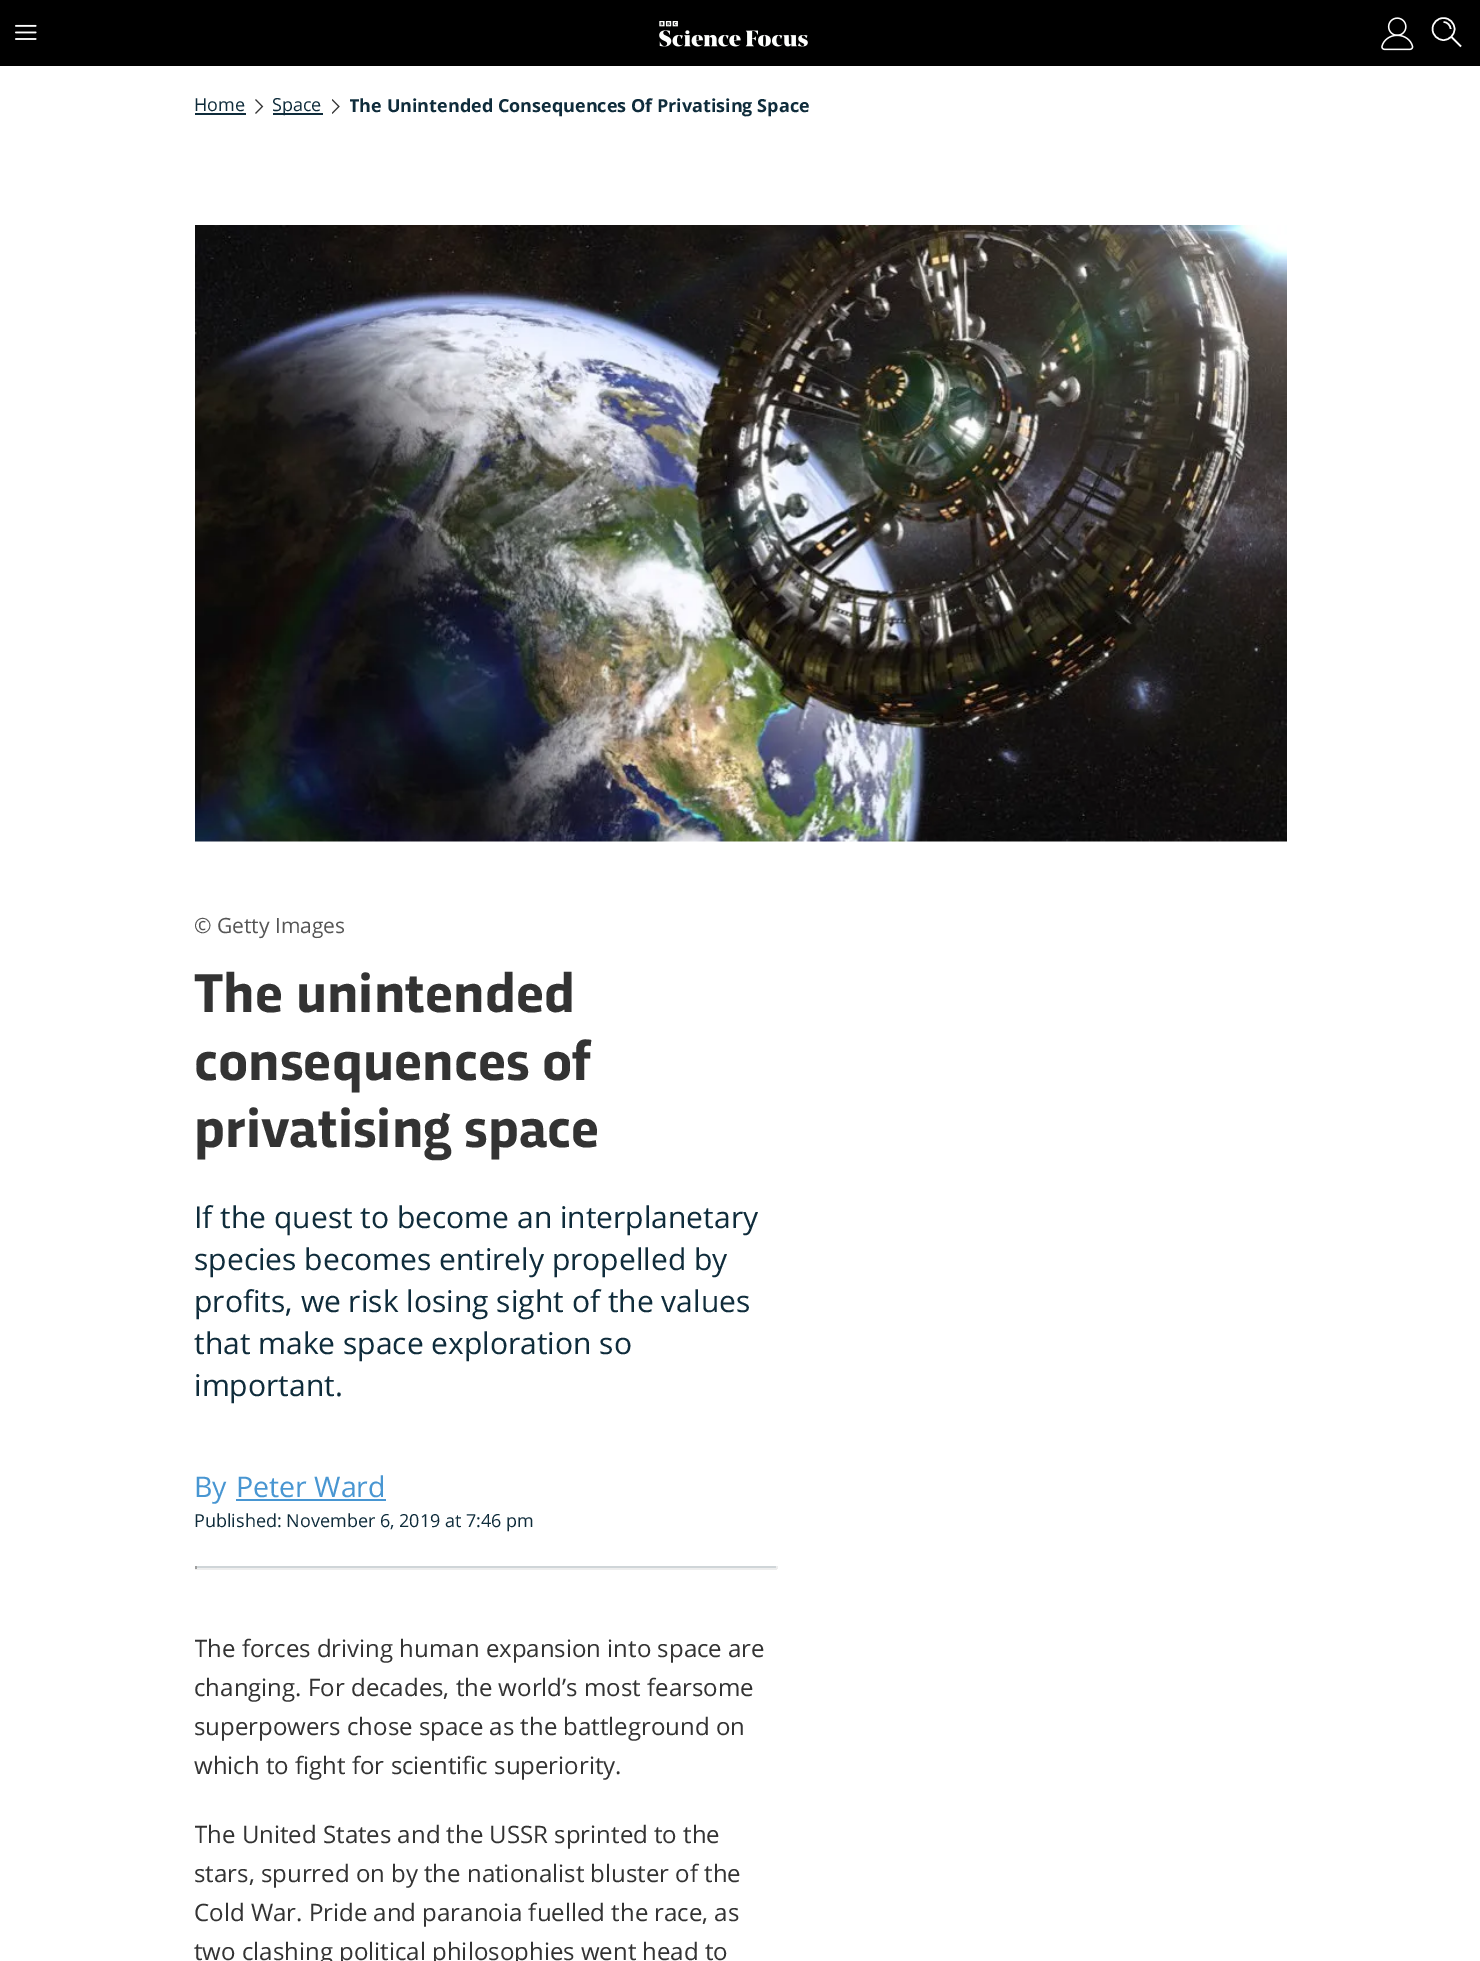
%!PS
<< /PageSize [1480 1961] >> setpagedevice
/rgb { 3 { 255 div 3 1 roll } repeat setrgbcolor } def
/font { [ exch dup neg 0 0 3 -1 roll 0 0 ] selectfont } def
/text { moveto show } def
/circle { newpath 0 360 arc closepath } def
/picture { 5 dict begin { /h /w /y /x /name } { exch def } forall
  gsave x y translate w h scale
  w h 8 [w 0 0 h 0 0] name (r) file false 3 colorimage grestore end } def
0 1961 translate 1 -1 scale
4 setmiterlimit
255 255 255 rgb
0 0 1480 1961 rectfill
0 0 0 rgb
0 0 1480 66 rectfill
(img_01.rgb) 15 24 22 16 picture
(img_02.rgb) 659 21 149 26 picture
(img_03.rgb) 1381 17 33 34 picture
255 255 255 rgb
1.5 setlinewidth
1443.5 29 11 circle stroke
1450.5 29 moveto 0 -3.5 -3 -7 -7 -7 rcurveto stroke
1 setlinejoin
1461 46.5 moveto -9.5 -9.5 rlineto stroke
15 44 59 rgb
195 113 51 2 rectfill
(img_04.rgb) 255 99 9 15 picture
273 113 50 2 rectfill
(img_05.rgb) 332 99 8 15 picture
(img_06.rgb) 195 225 1092 617 picture
72 150 210 rgb
236 1499 150 2 rectfill
207 213 216 rgb
195 1566 582 2 rectfill
238 238 238 rgb
776 1566 2 3 rectfill
195 1568 582 2 rectfill
159 159 159 rgb
195 1566 2 3 rectfill
/OpenSans-Regular 18 font
15 44 59 rgb
(Home) 194 111 text
(Space) 272 111 text
gsave
350 93 937 26 rectclip
/OpenSans-Bold 18 font
(The Unintended Consequences Of Privatising Space) 349 112 text
grestore
/OpenSans-Regular 21 font
85 85 85 rgb
(© Getty Images) 194 933 text
/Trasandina-Bold 57 font
51 51 51 rgb
(The unintended) 194 1012 text
(consequences of) 194 1080 text
(privatising space) 194 1147 text
/OpenSans-Regular 30 font
15 44 59 rgb
(If the quest to become an interplanetary) 194 1228 text
(species becomes entirely propelled by) 194 1270 text
(profits, we risk losing sight of the values) 194 1312 text
(that make space exploration so) 194 1354 text
(important.) 194 1396 text
/OpenSans-Regular 28.5 font
72 150 210 rgb
(By) 194 1497 text
(Peter Ward) 236 1497 text
/OpenSans-Regular 18 font
15 44 59 rgb
(Published: November 6, 2019 at 7:46 pm) 194 1527 text
gsave
195 1599 582 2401 rectclip
/OpenSans-Regular 24 font
51 51 51 rgb
(The forces driving human expansion into space are) 194 1657 text
grestore
/OpenSans-Regular 24 font
51 51 51 rgb
(changing. For decades, the world’s most fearsome) 194 1696 text
(superpowers chose space as the battleground on) 194 1735 text
(which to fight for scientific superiority.) 194 1774 text
gsave
195 1599 582 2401 rectclip
(The United States and the USSR sprinted to the) 194 1843 text
grestore
(stars, spurred on by the nationalist bluster of the) 194 1882 text
(Cold War. Pride and paranoia fuelled the race, as) 194 1921 text
(two clashing political philosophies went head to) 194 1960 text
showpage
